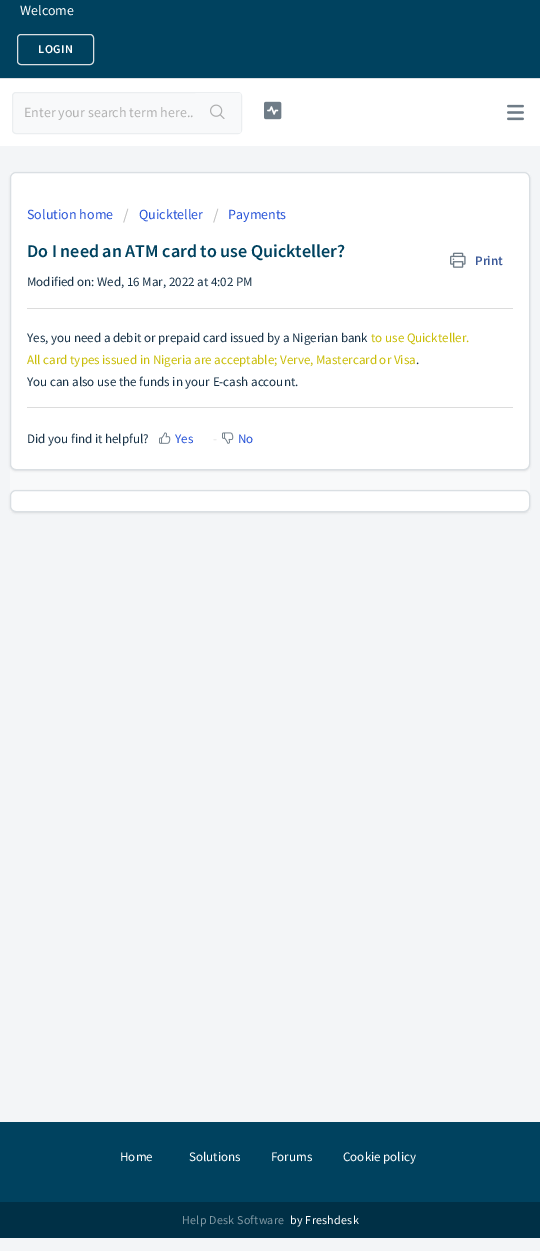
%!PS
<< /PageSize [540 1251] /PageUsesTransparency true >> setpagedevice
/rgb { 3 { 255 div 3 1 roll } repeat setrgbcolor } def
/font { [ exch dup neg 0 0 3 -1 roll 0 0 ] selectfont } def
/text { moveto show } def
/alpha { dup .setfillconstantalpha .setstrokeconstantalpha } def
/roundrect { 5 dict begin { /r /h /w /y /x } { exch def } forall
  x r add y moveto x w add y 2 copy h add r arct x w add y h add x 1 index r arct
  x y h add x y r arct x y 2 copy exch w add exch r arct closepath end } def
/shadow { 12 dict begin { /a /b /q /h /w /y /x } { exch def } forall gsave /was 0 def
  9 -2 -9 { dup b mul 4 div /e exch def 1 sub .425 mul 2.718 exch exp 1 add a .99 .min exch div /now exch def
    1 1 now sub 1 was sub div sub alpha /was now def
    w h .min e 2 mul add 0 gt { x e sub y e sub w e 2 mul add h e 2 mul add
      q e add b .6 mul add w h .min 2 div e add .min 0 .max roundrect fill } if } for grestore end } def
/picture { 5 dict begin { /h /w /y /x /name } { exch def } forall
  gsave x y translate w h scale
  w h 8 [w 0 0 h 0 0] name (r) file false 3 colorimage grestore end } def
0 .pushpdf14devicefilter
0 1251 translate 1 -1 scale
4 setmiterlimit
243 245 247 rgb
0 0 540 1251 rectfill
0 66 95 rgb
0 0 540 78 rectfill
218 223 227 rgb
0 78 540 1 rectfill
17.5 34.5 76 30 3.5 roundrect stroke
255 255 255 rgb
0 79 540 67 rectfill
(img_01.rgb) 507 104 17 17 picture
248 249 250 rgb
12.5 92.5 229 41 3.5 roundrect gsave fill grestore
235 238 240 rgb
stroke
248 249 250 rgb
195 93 46 40 2 roundrect fill
(img_02.rgb) 210 104 15 15 picture
(img_03.rgb) 264 101 18 19 picture
10 172 520 340 rectfill
63 63 68 rgb
10 173 520 298 6 1 0.15 shadow
255 255 255 rgb
10.5 172.5 519 297 5.5 roundrect gsave fill grestore
218 223 227 rgb
stroke
(img_04.rgb) 450 252 16 16 picture
220 220 220 rgb
27 308 486 1 rectfill
27 407 486 1 rectfill
(img_05.rgb) 159 432 12 12 picture
(img_06.rgb) 222 432 12 12 picture
63 63 68 rgb
10 491 520 22 6 1 0.15 shadow
255 255 255 rgb
10.5 490.5 519 21 5.5 roundrect gsave fill grestore
218 223 227 rgb
stroke
0 66 95 rgb
0 1122 540 80 rectfill
0 48 70 rgb
0 1202 540 36 rectfill
/SourceSansPro-Regular 14 font
255 255 255 rgb
(Welcome) 20 15 text
/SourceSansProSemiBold-SemiBold 12 font
38 53 moveto 0.5 0 (LOGIN) ashow
/SourceSansPro-Regular 14 font
178 178 178 rgb
(Enter your search term here..) 24 117 text
39 83 215 rgb
(Solution home) 27 219 text
/SourceSansPro-Regular 16 font
187 187 187 rgb
(/) 123 220 text
/SourceSansPro-Regular 14 font
39 83 215 rgb
(Quickteller) 139 219 text
/SourceSansPro-Regular 16 font
187 187 187 rgb
(/) 213 220 text
/SourceSansPro-Regular 14 font
39 83 215 rgb
(Payments) 228 219 text
/SourceSansProSemiBold-SemiBold 18 font
0 66 95 rgb
(Do I need an ATM card to use Quickteller?) 27 257 text
/SourceSansProSemiBold-SemiBold 13 font
59 89 152 rgb
(Print) 475 265 text
/SourceSansPro-Regular 13 font
24 50 71 rgb
(Modified on: Wed, 16 Mar, 2022 at 4:02 PM) 27 286 text
(Yes, you need a debit or prepaid card issued by a Nigerian bank) 27 342 text
201 189 8 rgb
(to use Quickteller.) 371 342 text
(All card types issued in Nigeria are acceptable; Verve, Mastercard or Visa) 27 364 text
24 50 71 rgb
(.) 416 364 text
(You can also use the funds in your E-cash account.) 27 386 text
(Did you find it helpful?) 27 443 text
39 83 215 rgb
(Yes) 175 443 text
229 229 229 rgb
(-) 213 443 text
39 83 215 rgb
(No) 238 443 text
255 255 255 rgb
(Home) 120 1161 text
(Solutions) 189 1161 text
(Forums) 271 1161 text
(Cookie policy) 343 1161 text
/SourceSansPro-Regular 12 font
128 152 163 rgb
182 1224 moveto 0.25 0 (Help Desk Software) ashow
255 255 255 rgb
290 1224 moveto 0.25 0 (by Freshdesk) ashow
.poppdf14devicefilter showpage
